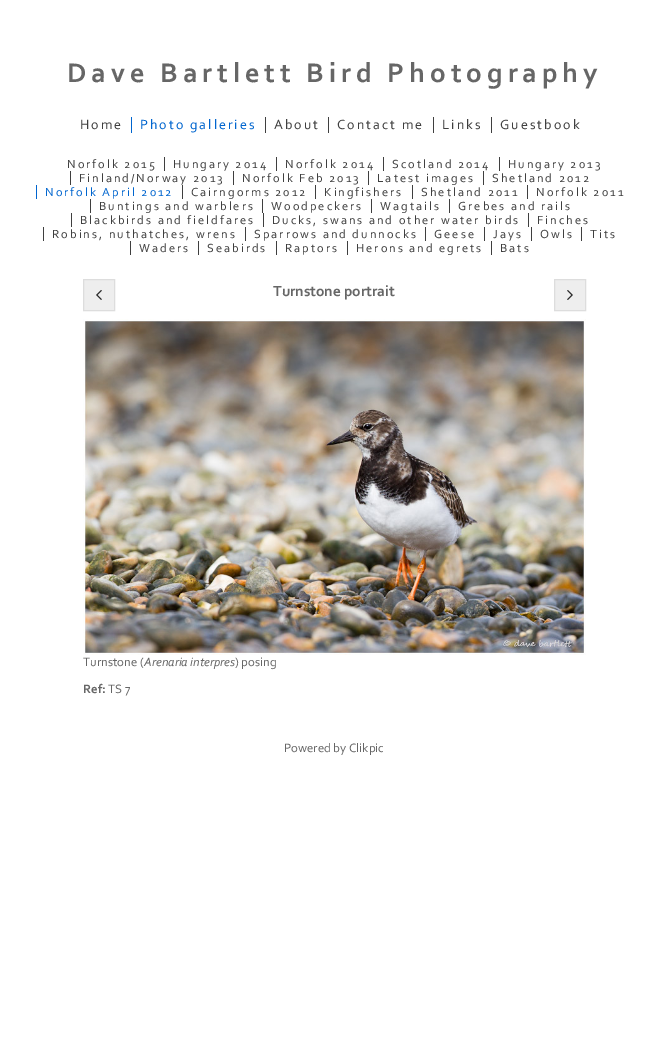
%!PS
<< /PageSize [669 1062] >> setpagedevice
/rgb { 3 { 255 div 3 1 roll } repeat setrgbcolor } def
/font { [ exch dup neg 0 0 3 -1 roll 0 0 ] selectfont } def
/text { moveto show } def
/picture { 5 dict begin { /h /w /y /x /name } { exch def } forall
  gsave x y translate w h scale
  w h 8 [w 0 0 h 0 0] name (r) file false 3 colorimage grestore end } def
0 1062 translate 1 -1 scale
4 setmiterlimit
255 255 255 rgb
0 0 669 1062 rectfill
0 101 207 rgb
131 117 1 16 rectfill
63 63 63 rgb
265 117 1 16 rectfill
328 117 1 16 rectfill
433 117 1 16 rectfill
491 117 1 16 rectfill
164 157 1 14 rectfill
276 157 1 14 rectfill
383 157 1 14 rectfill
499 157 1 14 rectfill
70 171 1 14 rectfill
233 171 1 14 rectfill
368 171 1 14 rectfill
483 171 1 14 rectfill
0 101 207 rgb
36 185 1 14 rectfill
63 63 63 rgb
182 185 1 14 rectfill
315 185 1 14 rectfill
412 185 1 14 rectfill
527 185 1 14 rectfill
90 199 1 14 rectfill
262 199 1 14 rectfill
371 199 1 14 rectfill
449 199 1 14 rectfill
71 213 1 14 rectfill
263 213 1 14 rectfill
528 213 1 14 rectfill
43 227 1 14 rectfill
245 227 1 14 rectfill
425 227 1 14 rectfill
484 227 1 14 rectfill
531 227 1 14 rectfill
581 227 1 14 rectfill
130 241 1 14 rectfill
198 241 1 14 rectfill
276 241 1 14 rectfill
347 241 1 14 rectfill
491 241 1 14 rectfill
238 238 238 rgb
83.5 279.5 moveto 31 0 rlineto 0 31 rlineto -31 0 rlineto closepath gsave fill grestore
221 221 221 rgb
stroke
(img_01.rgb) 96 290 6 10 picture
238 238 238 rgb
554.5 279.5 moveto 31 0 rlineto 0 31 rlineto -31 0 rlineto closepath gsave fill grestore
221 221 221 rgb
stroke
(img_02.rgb) 567 290 6 10 picture
(img_03.rgb) 83 319 503 336 picture
/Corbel-Bold 28.2 font
102 102 102 rgb
67 82 moveto 5 0 (Dave Bartlett Bird Photography) ashow
/Corbel-Regular 14 font
63 63 63 rgb
80 129 moveto 2 0 (Home) ashow
0 101 207 rgb
140 129 moveto 2 0 (Photo galleries) ashow
63 63 63 rgb
274 129 moveto 2 0 (About) ashow
337 129 moveto 2 0 (Contact me) ashow
442 129 moveto 2 0 (Links) ashow
500 129 moveto 2 0 (Guestbook) ashow
/Corbel-Regular 12.4 font
67 168 moveto 2 0 (Norfolk 2015) ashow
173 168 moveto 2 0 (Hungary 2014) ashow
285 168 moveto 2 0 (Norfolk 2014) ashow
392 168 moveto 2 0 (Scotland 2014) ashow
508 168 moveto 2 0 (Hungary 2013) ashow
79 182 moveto 2 0 (Finland/Norway 2013) ashow
242 182 moveto 2 0 (Norfolk Feb 2013) ashow
377 182 moveto 2 0 (Latest images) ashow
492 182 moveto 2 0 (Shetland 2012) ashow
0 101 207 rgb
45 196 moveto 2 0 (Norfolk April 2012) ashow
63 63 63 rgb
191 196 moveto 2 0 (Cairngorms 2012) ashow
324 196 moveto 2 0 (Kingfishers) ashow
421 196 moveto 2 0 (Shetland 2011) ashow
536 196 moveto 2 0 (Norfolk 2011) ashow
99 210 moveto 2 0 (Buntings and warblers) ashow
271 210 moveto 2 0 (Woodpeckers) ashow
380 210 moveto 2 0 (Wagtails) ashow
458 210 moveto 2 0 (Grebes and rails) ashow
80 224 moveto 2 0 (Blackbirds and fieldfares) ashow
272 224 moveto 2 0 (Ducks, swans and other water birds) ashow
537 224 moveto 2 0 (Finches) ashow
52 238 moveto 2 0 (Robins, nuthatches, wrens) ashow
254 238 moveto 2 0 (Sparrows and dunnocks) ashow
434 238 moveto 2 0 (Geese) ashow
493 238 moveto 2 0 (Jays) ashow
540 238 moveto 2 0 (Owls) ashow
590 238 moveto 2 0 (Tits) ashow
139 252 moveto 2 0 (Waders) ashow
207 252 moveto 2 0 (Seabirds) ashow
285 252 moveto 2 0 (Raptors) ashow
356 252 moveto 2 0 (Herons and egrets) ashow
500 252 moveto 2 0 (Bats) ashow
/Corbel-Bold 15.25 font
102 102 102 rgb
(Turnstone portrait) 273 296 text
/Corbel-Regular 12.75 font
(Turnstone \() 83 666 text
/Corbel-Italic 12.75 font
(Arenaria interpres) 144 666 text
/Corbel-Regular 12.75 font
(\) posing) 235 666 text
/Corbel-Bold 12.75 font
(Ref:) 83 693 text
/Corbel-Regular 12.75 font
(TS 7) 108 693 text
(Powered by Clikpic) 284 752 text
showpage
